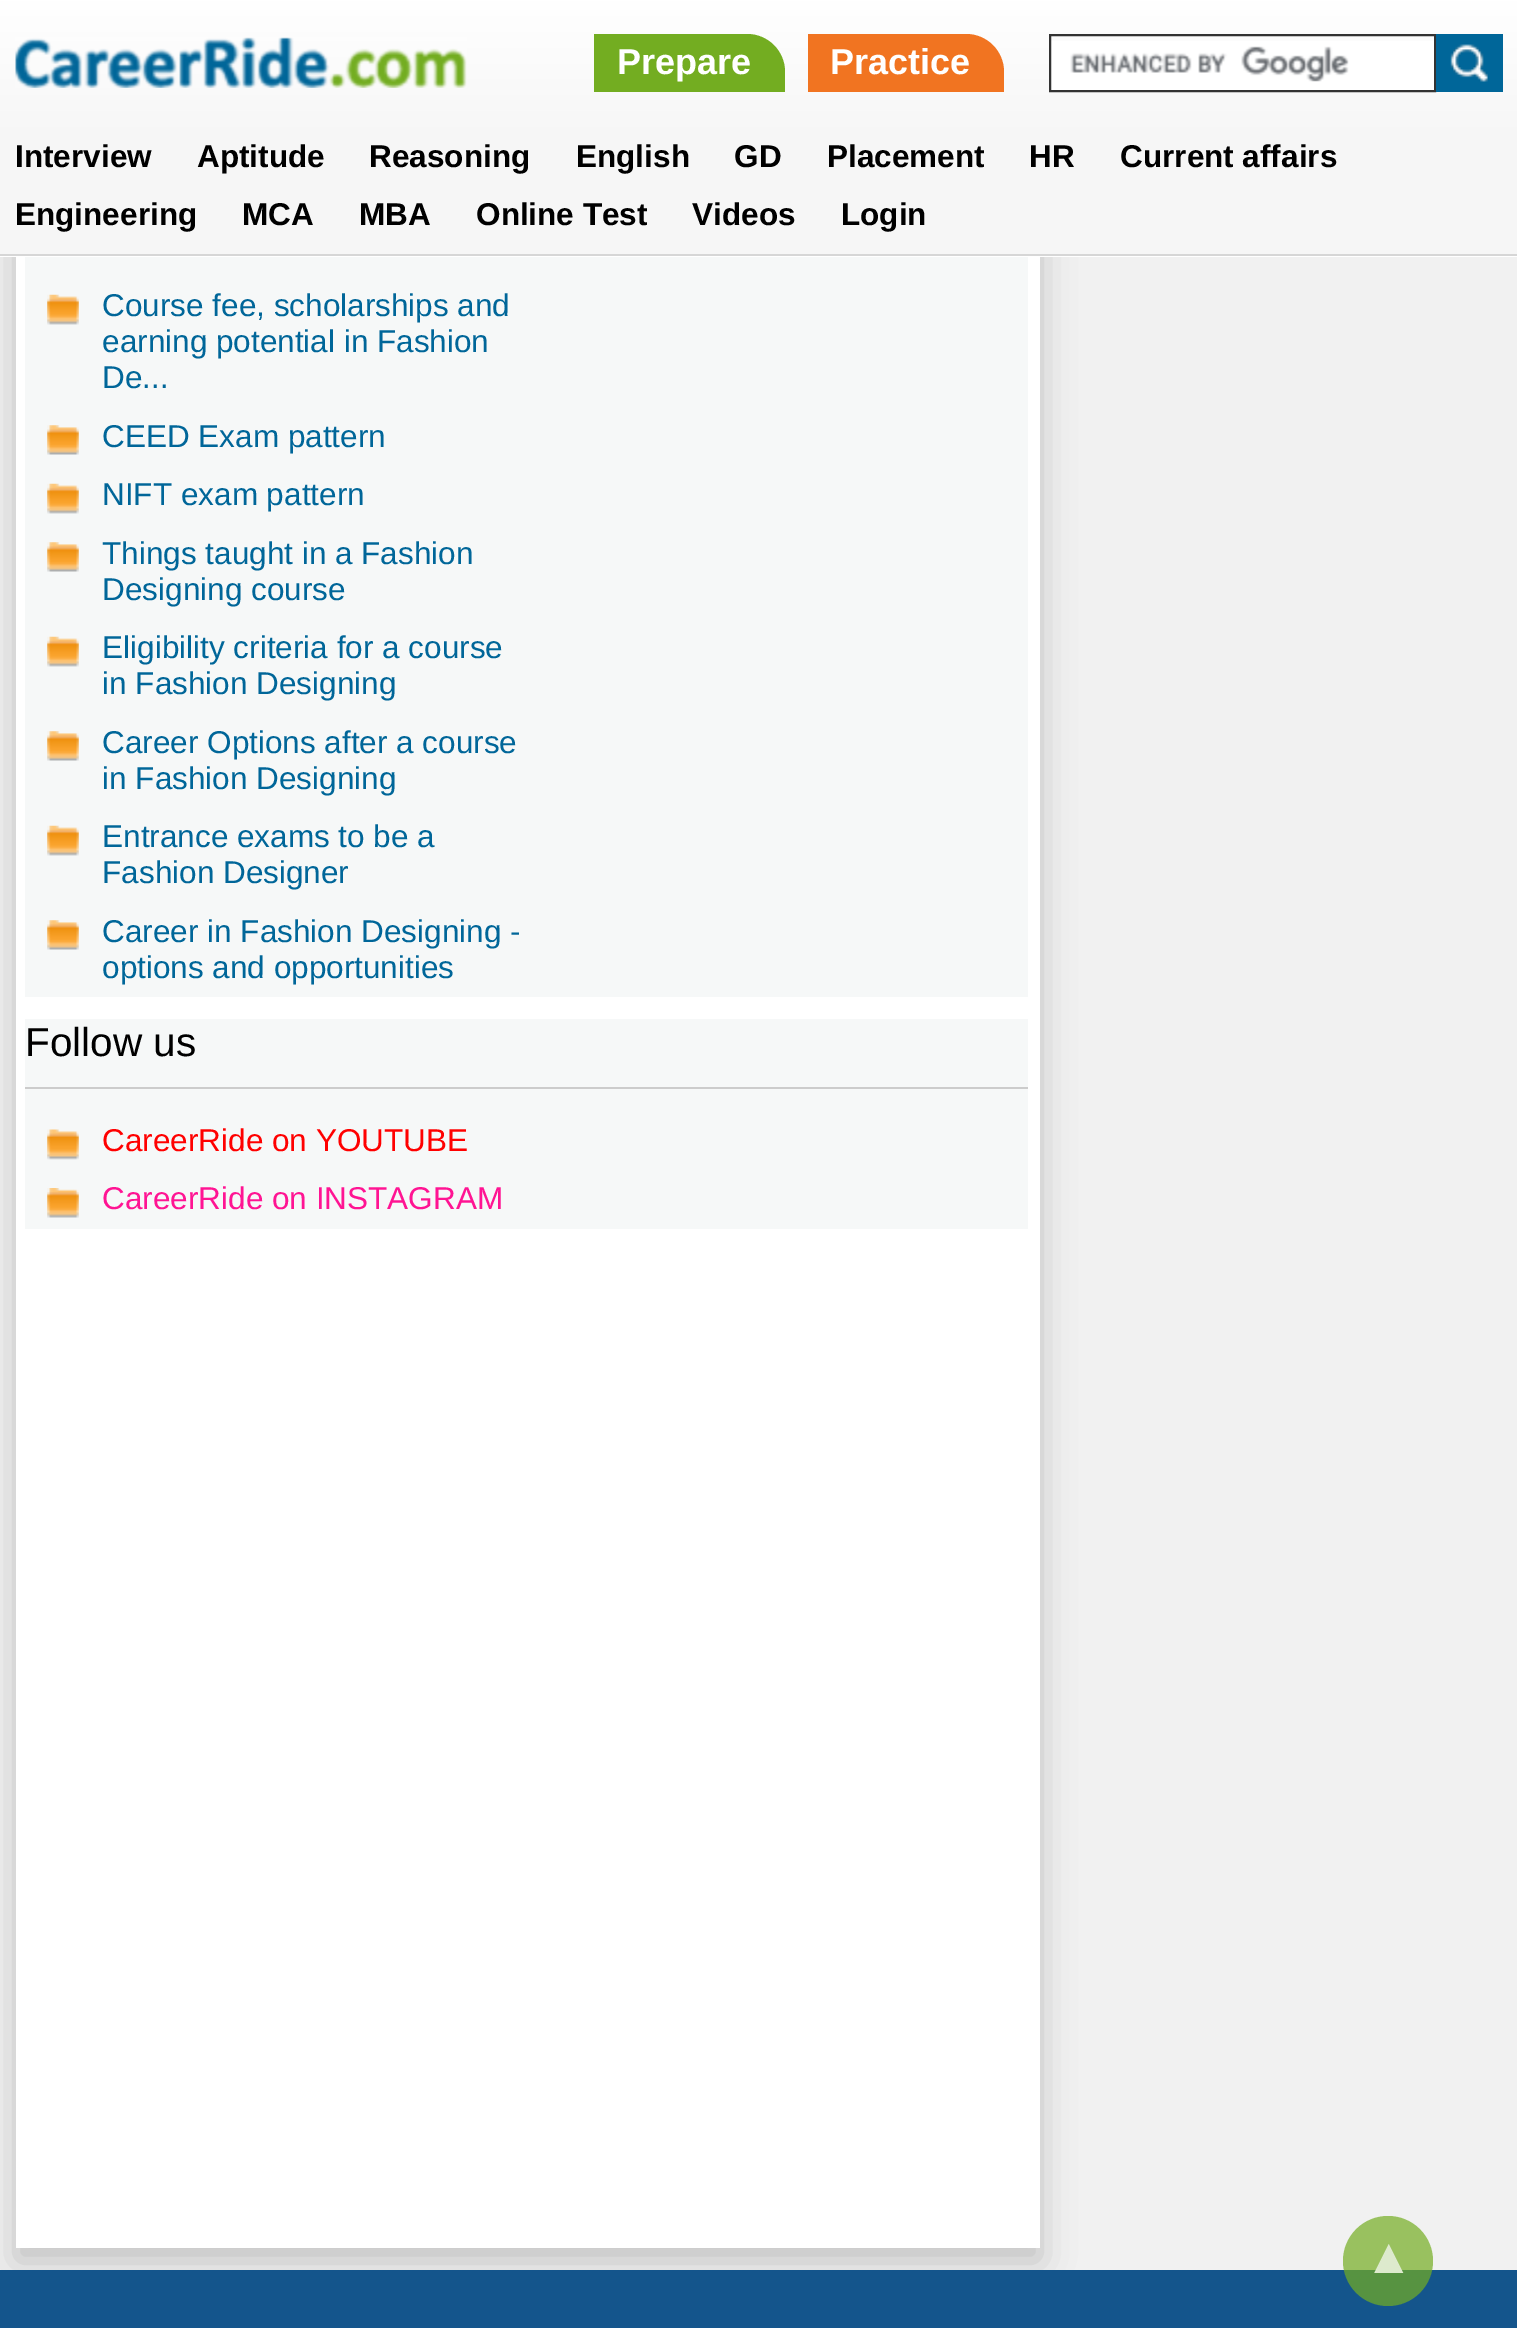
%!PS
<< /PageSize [1517 2328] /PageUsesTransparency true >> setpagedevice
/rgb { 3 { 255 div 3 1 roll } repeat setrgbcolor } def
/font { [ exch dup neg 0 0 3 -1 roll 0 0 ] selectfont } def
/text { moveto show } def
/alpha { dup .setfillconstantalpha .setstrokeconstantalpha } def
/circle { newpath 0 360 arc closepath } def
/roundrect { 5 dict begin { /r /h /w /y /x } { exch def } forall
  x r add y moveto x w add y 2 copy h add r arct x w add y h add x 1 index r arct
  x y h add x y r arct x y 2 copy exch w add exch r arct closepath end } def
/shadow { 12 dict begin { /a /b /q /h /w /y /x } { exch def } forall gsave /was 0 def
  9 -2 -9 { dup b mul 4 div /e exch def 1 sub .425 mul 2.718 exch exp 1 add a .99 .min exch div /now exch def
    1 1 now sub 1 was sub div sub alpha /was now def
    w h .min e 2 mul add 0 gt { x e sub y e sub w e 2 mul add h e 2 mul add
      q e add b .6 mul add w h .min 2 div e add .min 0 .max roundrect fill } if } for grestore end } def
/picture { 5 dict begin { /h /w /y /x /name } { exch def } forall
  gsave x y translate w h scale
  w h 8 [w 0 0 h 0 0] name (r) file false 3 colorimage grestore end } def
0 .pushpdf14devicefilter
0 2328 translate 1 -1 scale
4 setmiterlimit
241 241 241 rgb
0 0 1517 2328 rectfill
20 85 140 rgb
0 2270 1517 58 rectfill
gsave
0 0 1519 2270 rectclip
0 0 0 rgb
16 -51 1024 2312 0 17 0.2 shadow
grestore
gsave 0 0 moveto 1517 0 rlineto 0 254 rlineto -1517 0 rlineto closepath clip newpath
<< /ShadingType 2 /ColorSpace /DeviceRGB /Coords [759 254 759 0] /Extend [true true] /Function << /FunctionType 3 /Domain [0 1] /Functions [<< /FunctionType 2 /Domain [0 1] /C0 [0.965 0.965 0.965] /C1 [0.965 0.965 0.965] /N 1 >> << /FunctionType 2 /Domain [0 1] /C0 [0.965 0.965 0.965] /C1 [1 1 1] /N 1 >>] /Bounds [0.42] /Encode [0 1 0 1] >> >> shfill grestore
gsave 0 256 moveto 1517 0 rlineto 0 1 rlineto -1517 0 rlineto closepath clip newpath
<< /ShadingType 2 /ColorSpace /DeviceRGB /Coords [759 509 759 254] /Extend [true true] /Function << /FunctionType 3 /Domain [0 1] /Functions [<< /FunctionType 2 /Domain [0 1] /C0 [0.965 0.965 0.965] /C1 [0.965 0.965 0.965] /N 1 >> << /FunctionType 2 /Domain [0 1] /C0 [0.965 0.965 0.965] /C1 [1 1 1] /N 1 >>] /Bounds [0.42] /Encode [0 1 0 1] >> >> shfill grestore
214 214 214 rgb
0 254 1517 2 rectfill
(img_01.rgb) 15 37 452 51 picture
115 173 33 rgb
594 34 moveto 153 0 rlineto 21 0 38 17 38 38 rcurveto 0 20 rlineto -191 0 rlineto closepath fill
241 116 33 rgb
808 34 moveto 158 0 rlineto 21 0 38 17 38 38 rcurveto 0 20 rlineto -196 0 rlineto closepath fill
255 255 255 rgb
1051 41 383 49 rectfill
(img_02.rgb) 1070 46 279 36 picture
51 51 51 rgb
2 setlinewidth
1050 35 385 56 rectstroke
0 102 153 rgb
1436 34 67 58 rectfill
(img_03.rgb) 1450 44 38 38 picture
255 255 255 rgb
16 257 1024 1991 rectfill
246 248 248 rgb
25 257 1003 740 rectfill
(img_04.rgb) 47 294 32 31 picture
(img_05.rgb) 47 425 32 30 picture
(img_04.rgb) 47 483 32 31 picture
(img_05.rgb) 47 542 32 30 picture
(img_04.rgb) 47 636 32 31 picture
(img_05.rgb) 47 731 32 30 picture
(img_04.rgb) 47 825 32 31 picture
(img_05.rgb) 47 920 32 30 picture
25 1019 1003 210 rectfill
204 204 204 rgb
25 1087 1003 2 rectfill
(img_06.rgb) 47 1129 32 31 picture
(img_07.rgb) 47 1188 32 30 picture
0.7 alpha
115 173 33 rgb
1388 2261 45 circle fill
/LiberationSans-Bold 36 font
1 alpha
255 255 255 rgb
(Prepare) 617 74 text
(Practice) 830 74 text
/LiberationSans-Bold 31.5 font
0 0 0 rgb
(Interview) 15 167 text
(Aptitude) 197 167 text
(Reasoning) 369 167 text
(English) 576 167 text
(GD) 734 167 text
(Placement) 827 167 text
(HR) 1029 167 text
(Current affairs) 1120 167 text
(Engineering) 15 225 text
(MCA) 242 225 text
(MBA) 359 225 text
(Online Test) 476 225 text
(Videos) 692 225 text
(Login) 841 225 text
/LiberationSans-Regular 31.5 font
0 102 153 rgb
(Course fee, scholarships and) 102 316 text
(earning potential in Fashion) 102 352 text
(De...) 102 388 text
(CEED Exam pattern) 102 447 text
(NIFT exam pattern) 102 505 text
(Things taught in a Fashion) 102 564 text
(Designing course) 102 600 text
(Eligibility criteria for a course) 102 658 text
(in Fashion Designing) 102 694 text
(Career Options after a course) 102 753 text
(in Fashion Designing) 102 789 text
(Entrance exams to be a) 102 847 text
(Fashion Designer) 102 883 text
(Career in Fashion Designing -) 102 942 text
(options and opportunities) 102 978 text
/LiberationSans-Regular 40.5 font
0 0 0 rgb
(Follow us) 25 1056 text
/LiberationSans-Regular 31.5 font
255 0 0 rgb
(CareerRide on YOUTUBE) 102 1151 text
255 20 147 rgb
(CareerRide on INSTAGRAM) 102 1209 text
/LiberationSans-Bold 50 font
221 234 205 rgb
(▲) 1364 2273 text
.poppdf14devicefilter showpage
